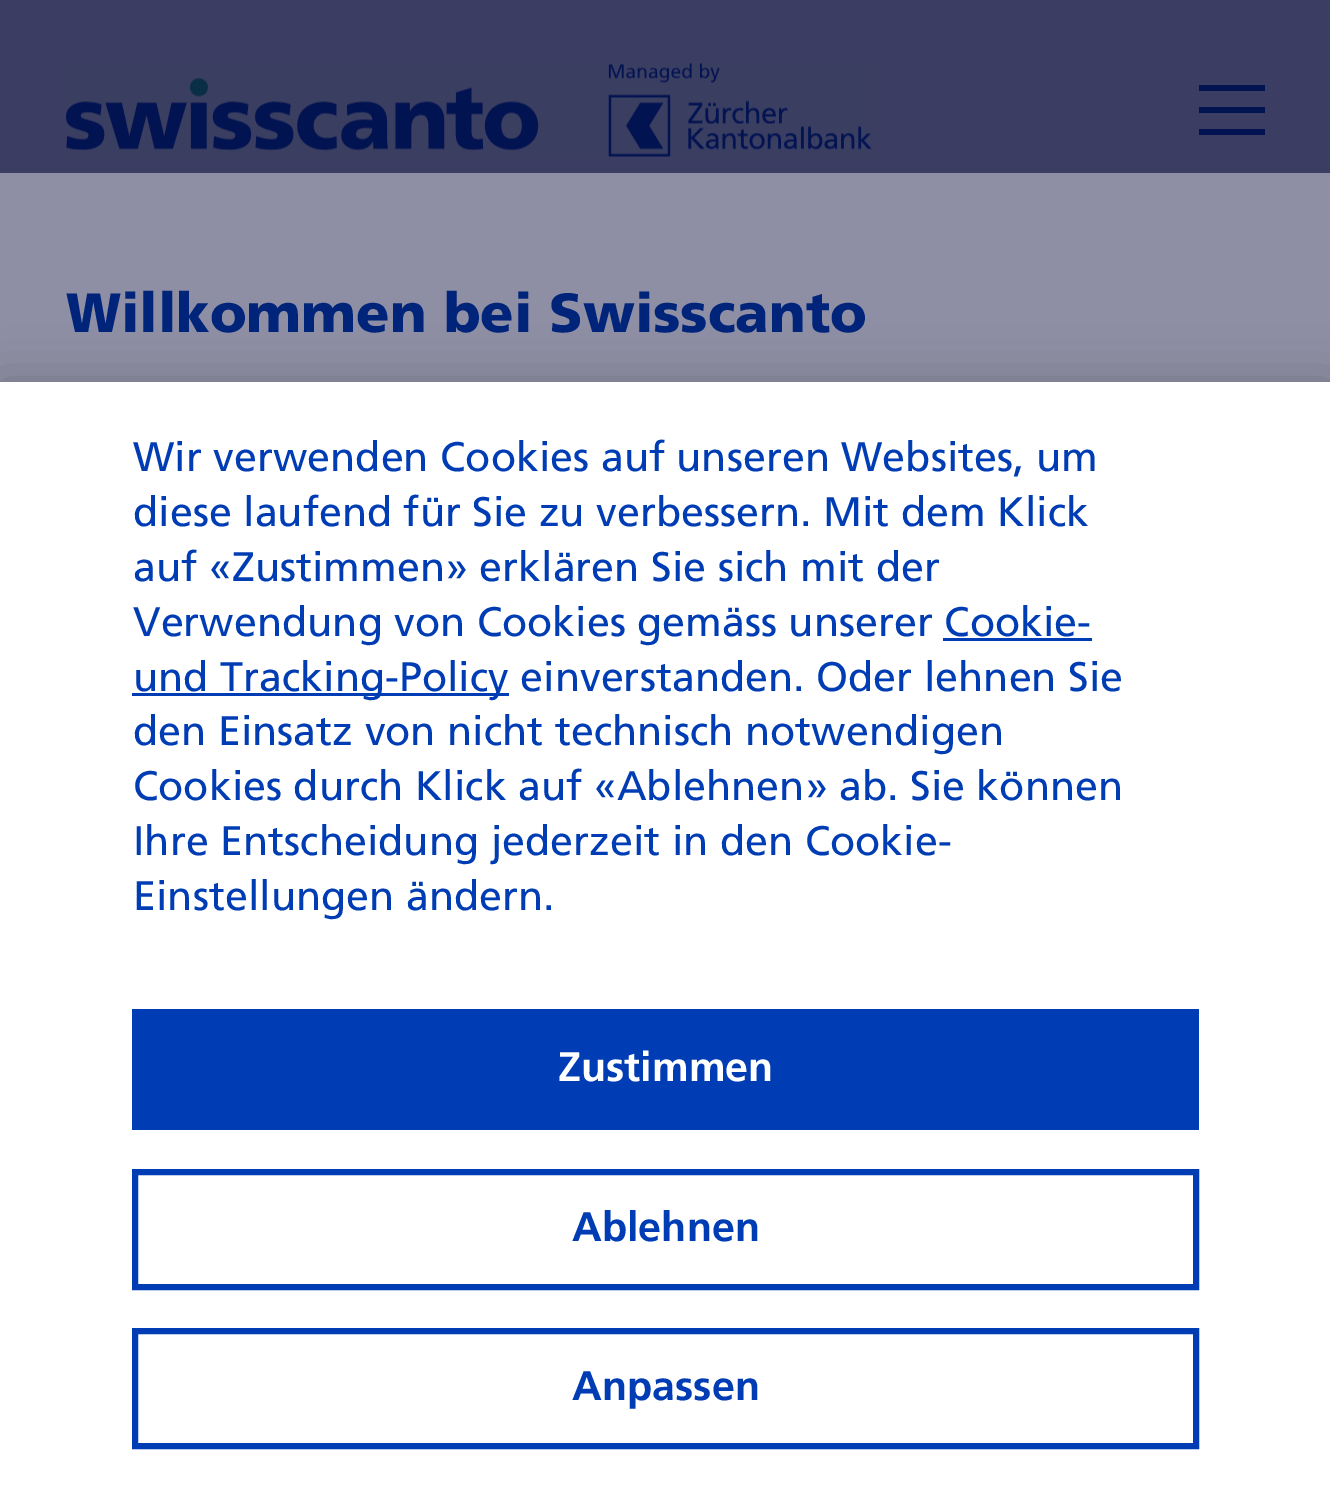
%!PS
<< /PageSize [1330 1505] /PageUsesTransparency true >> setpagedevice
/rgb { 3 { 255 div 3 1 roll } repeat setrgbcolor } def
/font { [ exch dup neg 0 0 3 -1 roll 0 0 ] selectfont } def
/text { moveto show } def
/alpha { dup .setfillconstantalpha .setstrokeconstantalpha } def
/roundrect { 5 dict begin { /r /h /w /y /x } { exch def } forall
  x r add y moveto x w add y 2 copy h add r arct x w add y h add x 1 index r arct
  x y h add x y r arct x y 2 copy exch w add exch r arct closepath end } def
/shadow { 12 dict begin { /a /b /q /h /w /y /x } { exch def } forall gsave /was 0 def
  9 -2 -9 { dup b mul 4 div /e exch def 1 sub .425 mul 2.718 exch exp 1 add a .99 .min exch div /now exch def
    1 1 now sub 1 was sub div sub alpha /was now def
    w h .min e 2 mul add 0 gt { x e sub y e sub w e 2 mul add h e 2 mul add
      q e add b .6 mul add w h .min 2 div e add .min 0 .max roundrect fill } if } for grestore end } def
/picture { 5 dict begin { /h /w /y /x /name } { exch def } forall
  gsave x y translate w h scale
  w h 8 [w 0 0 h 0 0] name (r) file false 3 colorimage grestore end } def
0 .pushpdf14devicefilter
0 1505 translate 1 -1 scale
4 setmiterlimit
59 61 98 rgb
0 0 1330 1505 rectfill
(img_01.rgb) 66 63 806 94 picture
2 19 81 rgb
1199 85 66 6 rectfill
1199 107 66 6 rectfill
1199 129 66 6 rectfill
142 143 164 rgb
0 173 1330 209 rectfill
0 0 0 rgb
0 382 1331 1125 0 25 0.2 shadow
255 255 255 rgb
0 382 1330 1123 rectfill
0 60 180 rgb
943 638 149 3 rectfill
132 693 377 3 rectfill
132 1009 1067 121 rectfill
6 setlinewidth
135 1172 1061 115 rectstroke
135 1331 1061 115 rectstroke
/Frutiger-Black 55 font
1 36 123 rgb
(Willkommen bei Swisscanto) 66 332 text
/Frutiger-Regular 41.25 font
0 60 180 rgb
(Wir verwenden Cookies auf unseren Websites, um) 133 471 text
(diese laufend für Sie zu verbessern. Mit dem Klick) 133 526 text
(auf «Zustimmen» erklären Sie sich mit der) 133 581 text
(Verwendung von Cookies gemäss unserer Cookie-) 133 636 text
(und Tracking-Policy einverstanden. Oder lehnen Sie) 133 691 text
(den Einsatz von nicht technisch notwendigen) 133 745 text
(Cookies durch Klick auf «Ablehnen» ab. Sie können) 133 800 text
(Ihre Entscheidung jederzeit in den Cookie-) 133 855 text
(Einstellungen ändern.) 133 910 text
/Frutiger-Bold 41.25 font
255 255 255 rgb
(Zustimmen) 558 1081 text
0 60 180 rgb
(Ablehnen) 572 1241 text
(Anpassen) 572 1400 text
.poppdf14devicefilter showpage
